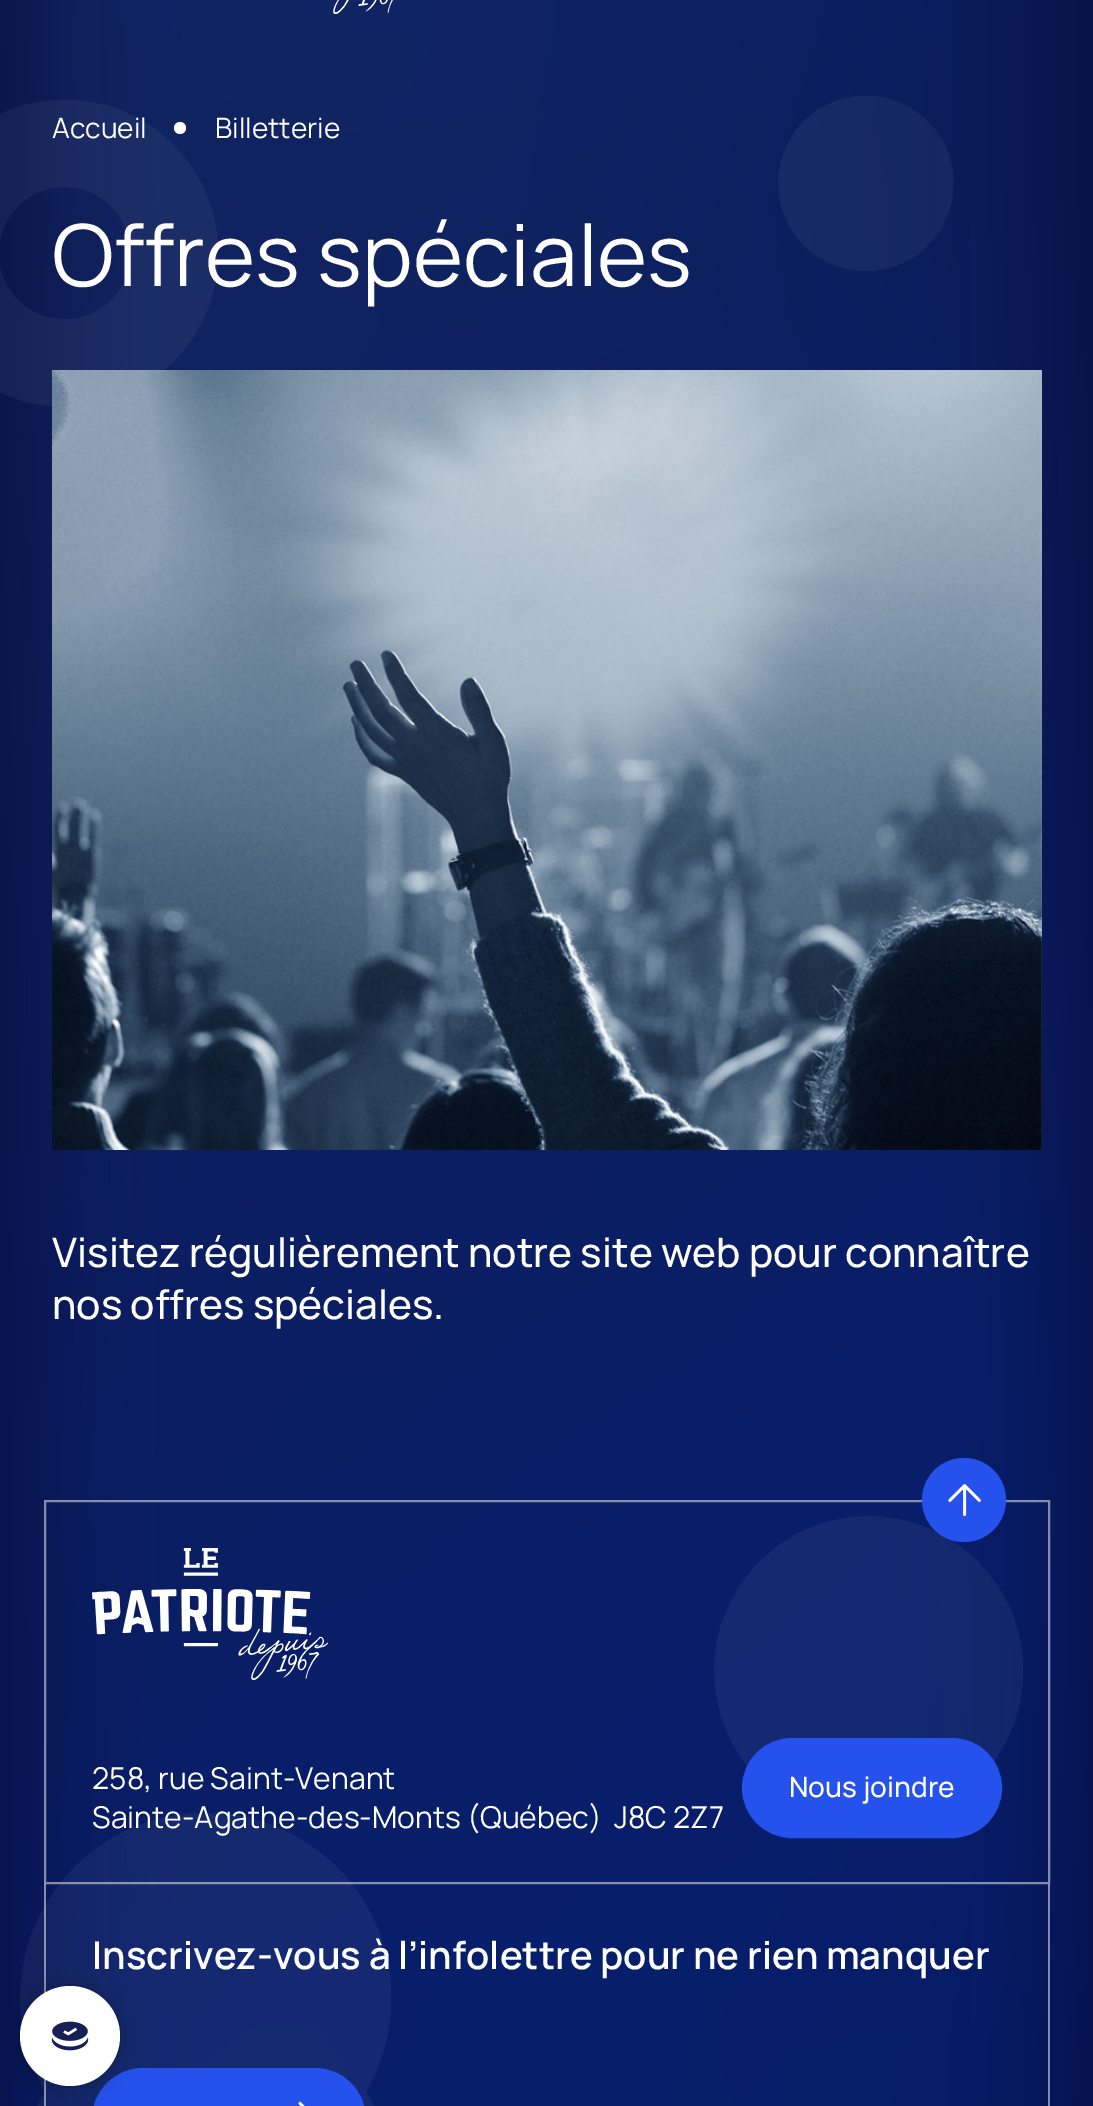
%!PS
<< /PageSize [1093 2106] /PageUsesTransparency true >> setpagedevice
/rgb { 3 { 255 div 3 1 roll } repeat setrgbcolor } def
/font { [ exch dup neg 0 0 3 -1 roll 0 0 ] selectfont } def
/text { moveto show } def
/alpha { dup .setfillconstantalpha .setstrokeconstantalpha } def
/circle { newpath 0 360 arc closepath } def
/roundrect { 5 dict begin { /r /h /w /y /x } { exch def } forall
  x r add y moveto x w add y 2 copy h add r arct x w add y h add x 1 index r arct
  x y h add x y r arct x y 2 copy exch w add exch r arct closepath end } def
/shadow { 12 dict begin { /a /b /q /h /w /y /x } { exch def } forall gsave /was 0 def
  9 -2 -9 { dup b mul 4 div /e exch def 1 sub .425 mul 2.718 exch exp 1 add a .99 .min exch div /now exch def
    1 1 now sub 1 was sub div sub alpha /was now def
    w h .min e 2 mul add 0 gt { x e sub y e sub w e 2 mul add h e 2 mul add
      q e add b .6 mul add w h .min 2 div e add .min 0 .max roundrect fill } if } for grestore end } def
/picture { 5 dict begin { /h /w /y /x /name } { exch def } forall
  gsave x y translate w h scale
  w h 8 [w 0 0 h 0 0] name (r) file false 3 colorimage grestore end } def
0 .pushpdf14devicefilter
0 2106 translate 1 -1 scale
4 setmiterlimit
4 9 55 rgb
0 0 1093 2106 rectfill
(img_01.rgb) 0 0 1093 2106 picture
(img_02.rgb) 333 0 60 14 picture
(img_03.rgb) 0 99 218 307 picture
(img_04.rgb) 778 96 176 175 picture
255 255 255 rgb
180 128 6 circle fill
(img_05.rgb) 52 370 990 780 picture
(img_07.rgb) 714 1516 309 251 picture
(img_08.rgb) 20 1813 371 293 picture
0.5 alpha
2 setlinewidth
45 1501 1004 382 rectstroke
1 alpha
37 82 237 rgb
964 1500 42 circle fill
(img_06.rgb) 948 1484 33 32 picture
(img_09.rgb) 92 1548 236 132 picture
743 1739 258 98 49 roundrect gsave fill grestore
stroke
0.5 alpha
255 255 255 rgb
1050 1884 moveto 0 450 rlineto -2 -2 rlineto 0 -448 rlineto closepath fill
44 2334 moveto 0 -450 rlineto 2 0 rlineto 0 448 rlineto closepath fill
1 alpha
37 82 237 rgb
93 2069 272 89 50 roundrect gsave fill grestore
stroke
(img_10.rgb) 298 2101 7 5 picture
0 0 0 rgb
20 1986 100 100 50 10 0.25 shadow
255 255 255 rgb
70 2036 50 circle fill
(img_11.rgb) 51 2021 38 30 picture
/Manrope-Regular 28 font
(Accueil) 52 138 text
(Billetterie) 215 138 text
/Manrope-Regular 85.5 font
(Offres spéciales) 52 286 text
/Manrope-Medium 40.5 font
(Visitez régulièrement notre site web pour connaître) 52 1267 text
(nos offres spéciales.) 52 1319 text
/Manrope-Regular 30.1 font
(258, rue Saint-Venant) 92 1789 text
(Sainte-Agathe-des-Monts \(Québec\)  J8C 2Z7) 92 1828 text
/Manrope-Medium 28 font
255 254 247 rgb
(Nous joindre) 789 1797 text
/Manrope-SemiBold 38.3 font
255 255 255 rgb
(Inscrivez-vous à l’infolettre pour ne rien manquer) 92 1969 text
.poppdf14devicefilter showpage
